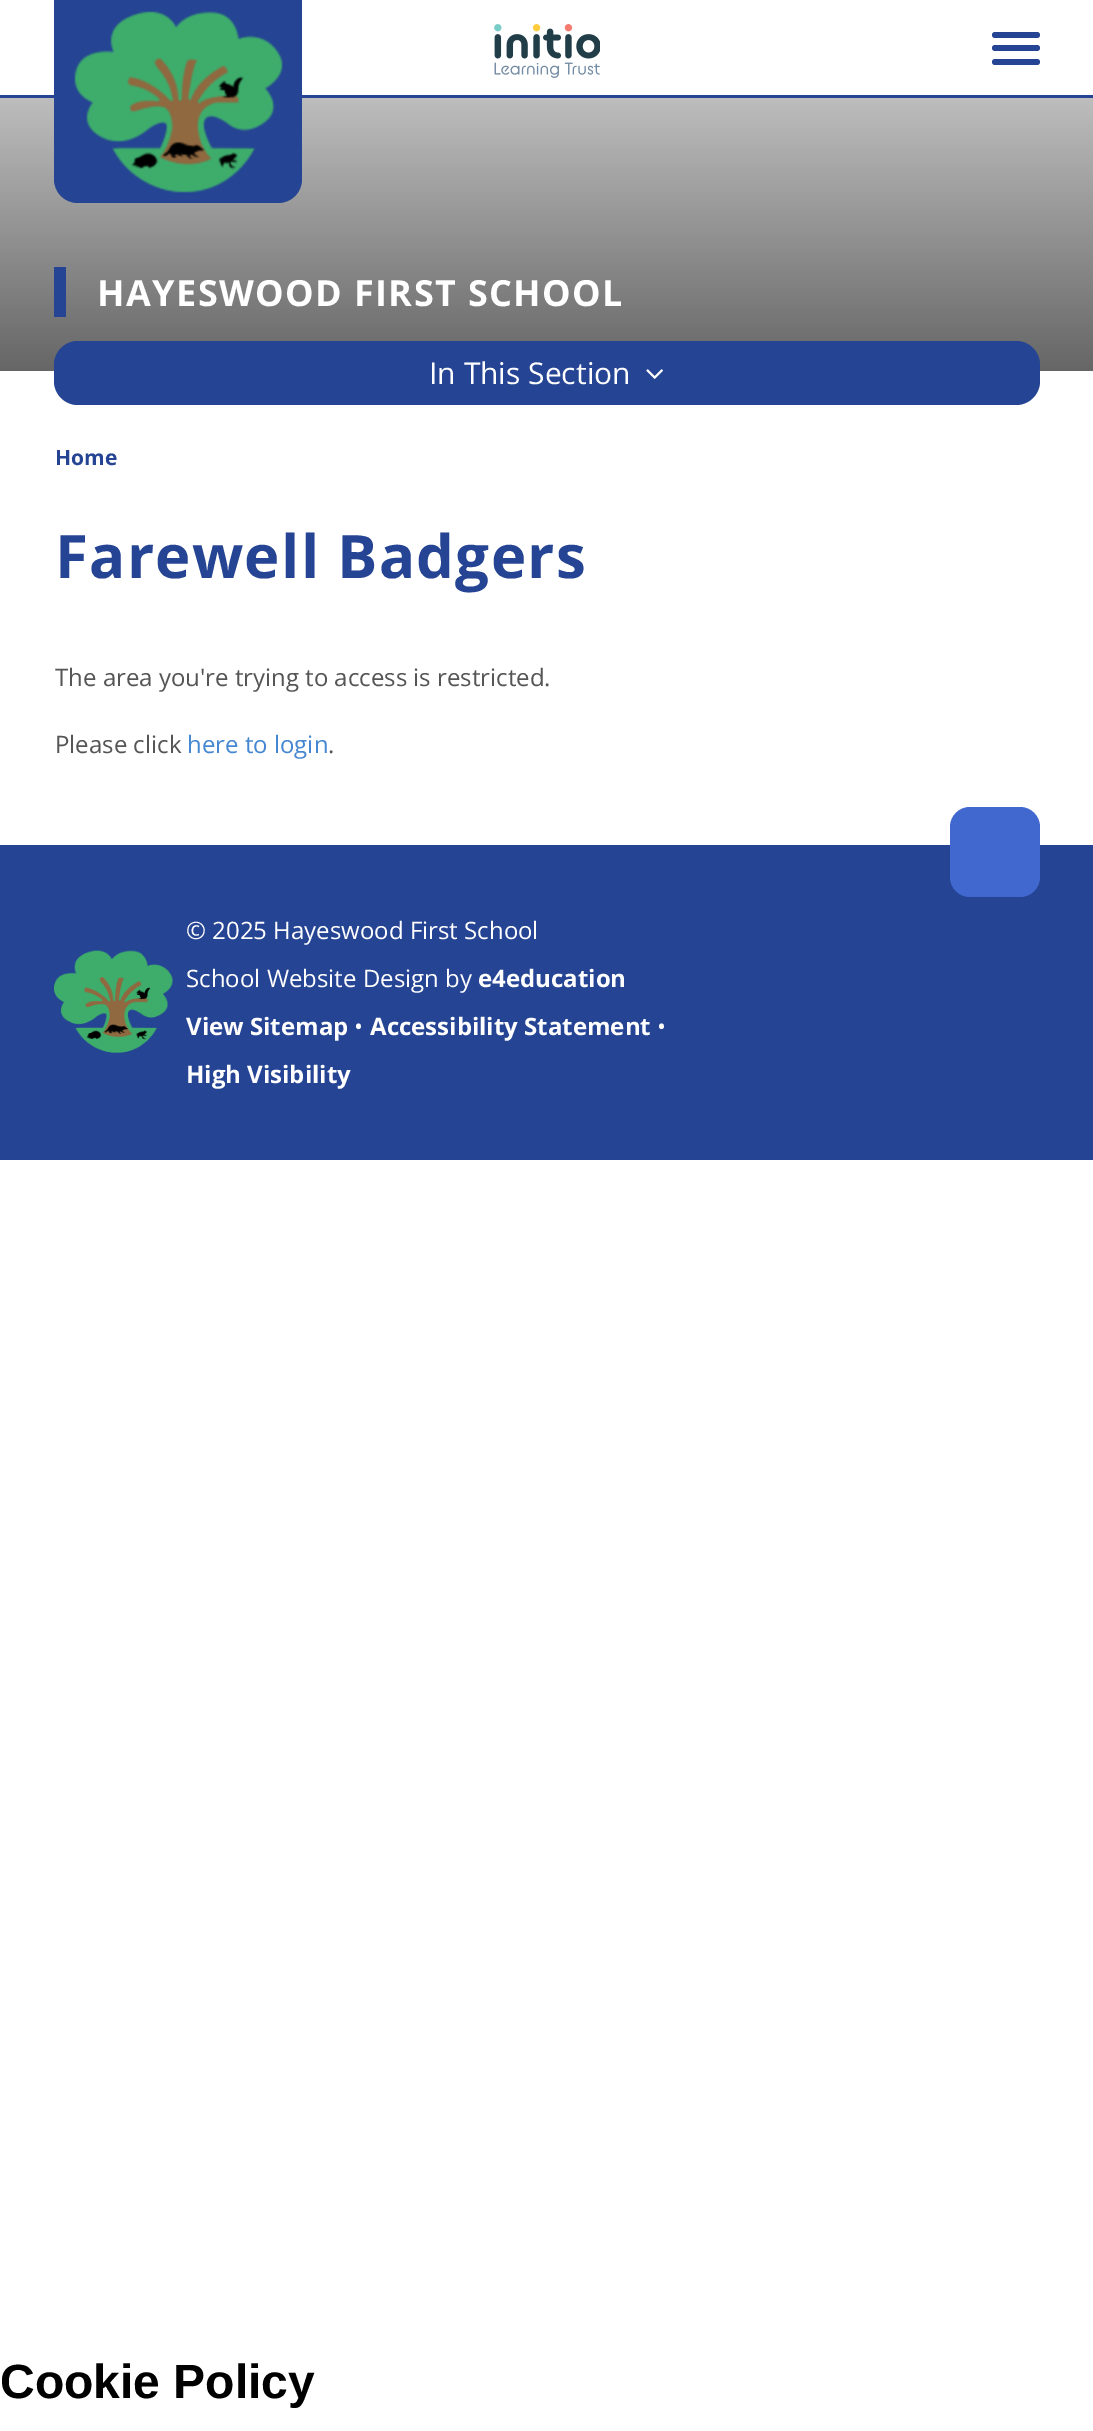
%!PS
<< /PageSize [1093 2431] >> setpagedevice
/rgb { 3 { 255 div 3 1 roll } repeat setrgbcolor } def
/font { [ exch dup neg 0 0 3 -1 roll 0 0 ] selectfont } def
/text { moveto show } def
/roundrect { 5 dict begin { /r /h /w /y /x } { exch def } forall
  x r add y moveto x w add y 2 copy h add r arct x w add y h add x 1 index r arct
  x y h add x y r arct x y 2 copy exch w add exch r arct closepath end } def
/picture { 5 dict begin { /h /w /y /x /name } { exch def } forall
  gsave x y translate w h scale
  w h 8 [w 0 0 h 0 0] name (r) file false 3 colorimage grestore end } def
0 2431 translate 1 -1 scale
4 setmiterlimit
255 255 255 rgb
0 0 1093 2431 rectfill
37 68 147 rgb
0 95 1093 3 rectfill
gsave 0 98 moveto 1093 0 rlineto 0 273 rlineto -1093 0 rlineto closepath clip newpath
<< /ShadingType 2 /ColorSpace /DeviceRGB /Coords [547 -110 547 371] /Extend [true true] /Function << /FunctionType 2 /Domain [0 1] /C0 [1 1 1] /C1 [0.4 0.4 0.4] /N 1 >> >> shfill grestore
54 0 moveto 248 0 rlineto 0 179 rlineto 0 13.5 -10.5 24 -24 24 rcurveto -200 0 rlineto -13.5 0 -24 -10.5 -24 -24 rcurveto closepath fill
(img_01.rgb) 74 11 209 182 picture
995 32 moveto 21 0 rlineto 0 6 rlineto -21 0 rlineto -1.5 0 -3 -1.5 -3 -3 rcurveto 0 -1.5 1.5 -3 3 -3 rcurveto closepath fill
1016 32 moveto 21 0 rlineto 1.5 0 3 1.5 3 3 rcurveto 0 1.5 -1.5 3 -3 3 rcurveto -21 0 rlineto closepath fill
995 45 moveto 21 0 rlineto 0 6 rlineto -21 0 rlineto -1.5 0 -3 -1.5 -3 -3 rcurveto 0 -1.5 1.5 -3 3 -3 rcurveto closepath fill
1016 45 moveto 21 0 rlineto 1.5 0 3 1.5 3 3 rcurveto 0 1.5 -1.5 3 -3 3 rcurveto -21 0 rlineto closepath fill
995 59 moveto 21 0 rlineto 0 6 rlineto -21 0 rlineto -1.5 0 -3 -1.5 -3 -3 rcurveto 0 -1.5 1.5 -3 3 -3 rcurveto closepath fill
1016 59 moveto 21 0 rlineto 1.5 0 3 1.5 3 3 rcurveto 0 1.5 -1.5 3 -3 3 rcurveto -21 0 rlineto closepath fill
(img_02.rgb) 494 24 106 54 picture
54 267 12 50 rectfill
54 341 986 64 24 roundrect fill
(img_03.rgb) 646 369 17 10 picture
0 845 1093 315 rectfill
64 104 207 rgb
950 807 90 90 20 roundrect fill
(img_04.rgb) 54 950 119 103 picture
/OpenSans-Bold 36 font
255 255 255 rgb
97 306 moveto 1.4 0 (HAYESWOOD FIRST SCHOOL) ashow
/OpenSans-Regular 30 font
(In This Section) 429 384 text
/OpenSans-Bold 21 font
37 68 147 rgb
(Home) 55 465 text
/OpenSans-Bold 60 font
55 578 moveto 1.25 0 (Farewell Badgers) ashow
/OpenSans-Regular 24 font
85 85 85 rgb
(The area you're trying to access is restricted.) 55 686 text
(Please click) 55 753 text
69 135 208 rgb
(here to login) 187 753 text
85 85 85 rgb
(.) 328 753 text
255 255 255 rgb
(© 2025 Hayeswood First School) 186 939 text
(School Website Design by) 186 987 text
/OpenSans-Bold 24 font
(e4education) 478 987 text
(View Sitemap) 186 1035 text
/OpenSans-Regular 24 font
(•) 354 1035 text
/OpenSans-Bold 24 font
(Accessibility Statement) 370 1035 text
/OpenSans-Regular 24 font
(•) 657 1035 text
/OpenSans-Bold 24 font
(High Visibility) 186 1083 text
/LiberationSans-Bold 48 font
0 0 0 rgb
(Cookie Policy) 0 2398 text
showpage
